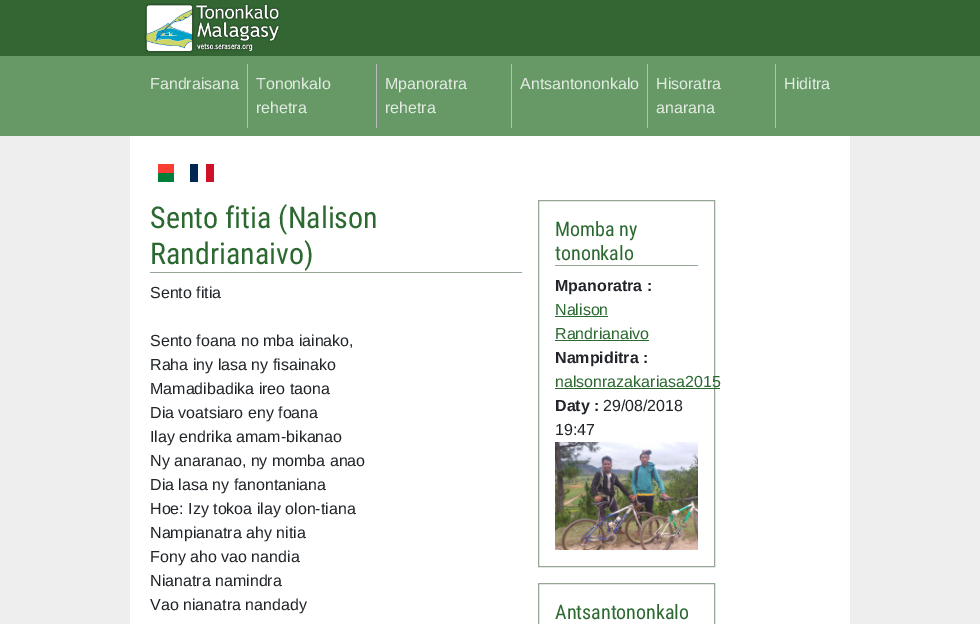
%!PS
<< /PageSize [980 624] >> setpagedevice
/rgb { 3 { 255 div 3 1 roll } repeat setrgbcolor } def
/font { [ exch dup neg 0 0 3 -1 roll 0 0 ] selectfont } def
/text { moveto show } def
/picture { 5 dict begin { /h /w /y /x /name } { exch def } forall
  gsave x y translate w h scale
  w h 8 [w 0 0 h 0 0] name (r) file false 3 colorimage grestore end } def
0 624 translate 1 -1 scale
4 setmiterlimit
238 238 238 rgb
0 0 980 624 rectfill
51 102 51 rgb
0 0 980 56 rectfill
(img_01.rgb) 144 3 137 50 picture
102 153 102 rgb
0 56 980 80 rectfill
186 186 186 rgb
247 64 1 64 rectfill
376 64 1 64 rectfill
511 64 1 64 rectfill
647 64 1 64 rectfill
775 64 1 64 rectfill
255 255 255 rgb
130 136 720 488 rectfill
252 61 50 rgb
158 164 16 9 rectfill
0 126 58 rgb
158 173 16 9 rectfill
0 38 84 rgb
190 164 8 18 rectfill
206 17 38 rgb
206 164 8 18 rectfill
151 167 151 rgb
150 272 372 1 rectfill
538.5 200.5 176 366 rectstroke
555 265 143 1 rectfill
43 105 48 rgb
555 316 53 1 rectfill
555 340 94 1 rectfill
555 388 165 1 rectfill
(img_02.rgb) 555 442 143 108 picture
151 167 151 rgb
538.5 583.5 176 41 rectstroke
/LiberationSans-Regular 16 font
226 236 226 rgb
(Fandraisana) 150 89 text
(Tononkalo) 256 89 text
(rehetra) 256 113 text
(Mpanoratra) 385 89 text
(rehetra) 385 113 text
(Antsantononkalo) 520 89 text
(Hisoratra) 656 89 text
(anarana) 656 113 text
(Hiditra) 784 89 text
/RobotoCondensed-Regular 30 font
43 105 48 rgb
(Sento fitia \(Nalison) 150 228 text
(Randrianaivo\)) 150 264 text
/LiberationSans-Regular 16 font
33 37 41 rgb
(Sento fitia) 150 298 text
(Sento foana no mba iainako,) 150 346 text
(Raha iny lasa ny fisainako) 150 370 text
(Mamadibadika ireo taona) 150 394 text
(Dia voatsiaro eny foana) 150 418 text
(Ilay endrika amam-bikanao) 150 442 text
(Ny anaranao, ny momba anao) 150 466 text
(Dia lasa ny fanontaniana) 150 490 text
(Hoe: Izy tokoa ilay olon-tiana) 150 514 text
(Nampianatra ahy nitia) 150 538 text
(Fony aho vao nandia) 150 562 text
(Nianatra namindra) 150 586 text
(Vao nianatra nandady) 150 610 text
/RobotoCondensed-Regular 20 font
43 105 48 rgb
(Momba ny) 555 236 text
(tononkalo) 555 260 text
/LiberationSans-Bold 16 font
33 37 41 rgb
(Mpanoratra :) 555 291 text
/LiberationSans-Regular 16 font
43 105 48 rgb
(Nalison) 555 315 text
(Randrianaivo) 555 339 text
/LiberationSans-Bold 16 font
33 37 41 rgb
(Nampiditra :) 555 363 text
/LiberationSans-Regular 16 font
43 105 48 rgb
(nalsonrazakariasa2015) 555 387 text
/LiberationSans-Bold 16 font
33 37 41 rgb
(Daty :) 555 411 text
/LiberationSans-Regular 16 font
(29/08/2018) 603 411 text
(19:47) 555 435 text
/RobotoCondensed-Regular 20 font
43 105 48 rgb
(Antsantononkalo) 555 619 text
showpage
